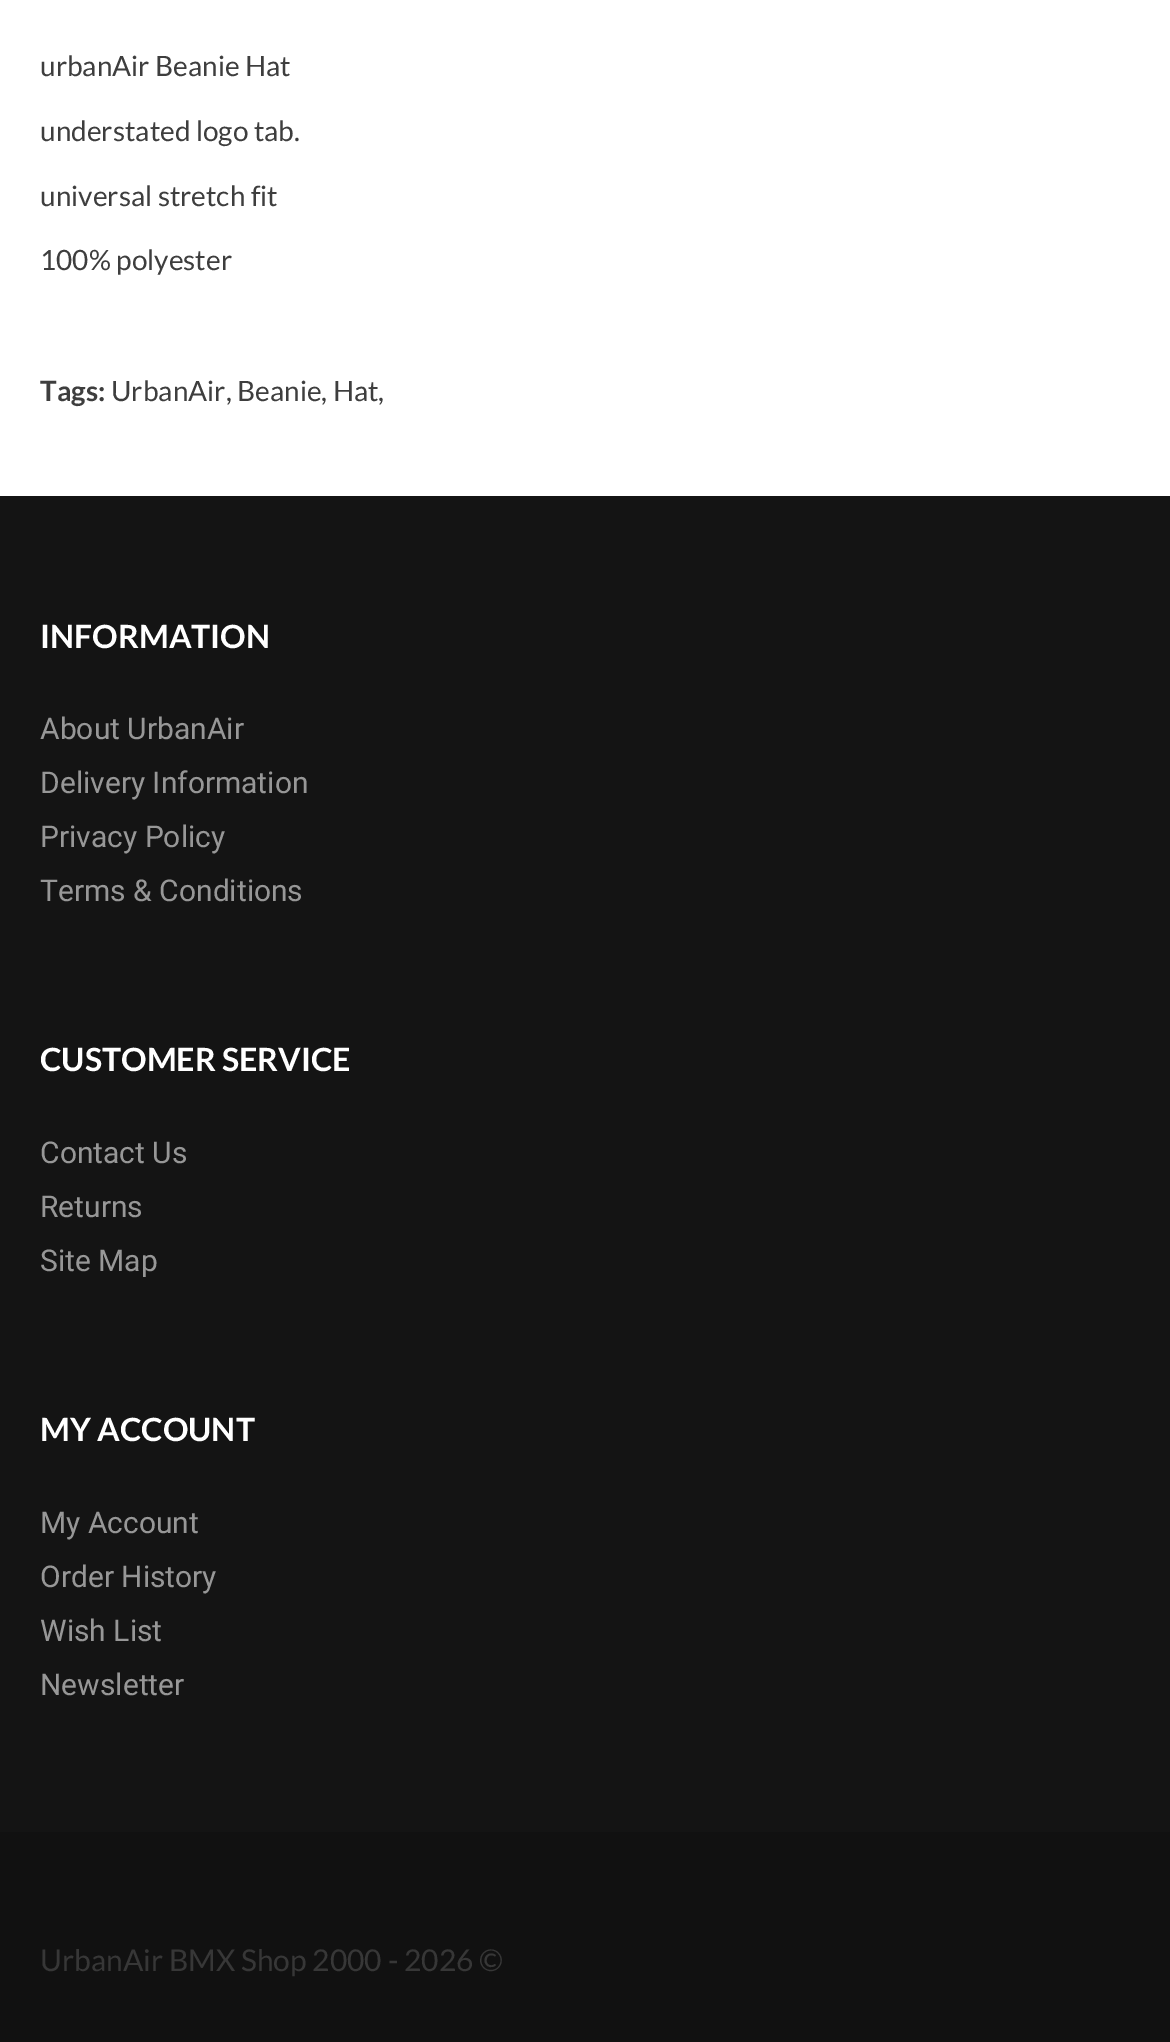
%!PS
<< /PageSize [1170 2042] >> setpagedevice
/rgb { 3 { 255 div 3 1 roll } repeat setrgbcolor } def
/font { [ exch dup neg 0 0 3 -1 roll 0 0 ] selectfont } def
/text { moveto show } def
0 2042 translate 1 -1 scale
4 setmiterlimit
255 255 255 rgb
0 0 1170 2042 rectfill
20 20 20 rgb
0 496 1170 1336 rectfill
17 17 17 rgb
0 1832 1170 210 rectfill
/Lato-Regular 28 font
62 62 62 rgb
(urbanAir Beanie Hat) 40 76 text
(understated logo tab.) 40 141 text
(universal stretch fit) 40 206 text
(100% polyester) 40 270 text
/Lato-Bold 28 font
(Tags:) 40 401 text
/Lato-Regular 28 font
(UrbanAir, Beanie, Hat,) 111 401 text
/Lato-Bold 32 font
255 255 255 rgb
(INFORMATION) 40 648 text
/Roboto-Regular 30 font
151 151 151 rgb
(About UrbanAir) 40 739 text
(Delivery Information) 40 793 text
(Privacy Policy) 40 847 text
(Terms & Conditions) 40 901 text
/Lato-Bold 32 font
255 255 255 rgb
(CUSTOMER SERVICE) 40 1071 text
/Roboto-Regular 30 font
151 151 151 rgb
(Contact Us) 40 1163 text
(Returns) 40 1217 text
(Site Map) 40 1271 text
/Lato-Bold 32 font
255 255 255 rgb
(MY ACCOUNT) 40 1441 text
/Roboto-Regular 30 font
151 151 151 rgb
(My Account) 40 1533 text
(Order History) 40 1587 text
(Wish List) 40 1641 text
(Newsletter) 40 1695 text
/Lato-Regular 30 font
55 55 55 rgb
(UrbanAir BMX Shop 2000 - 2026 ©) 40 1971 text
showpage
